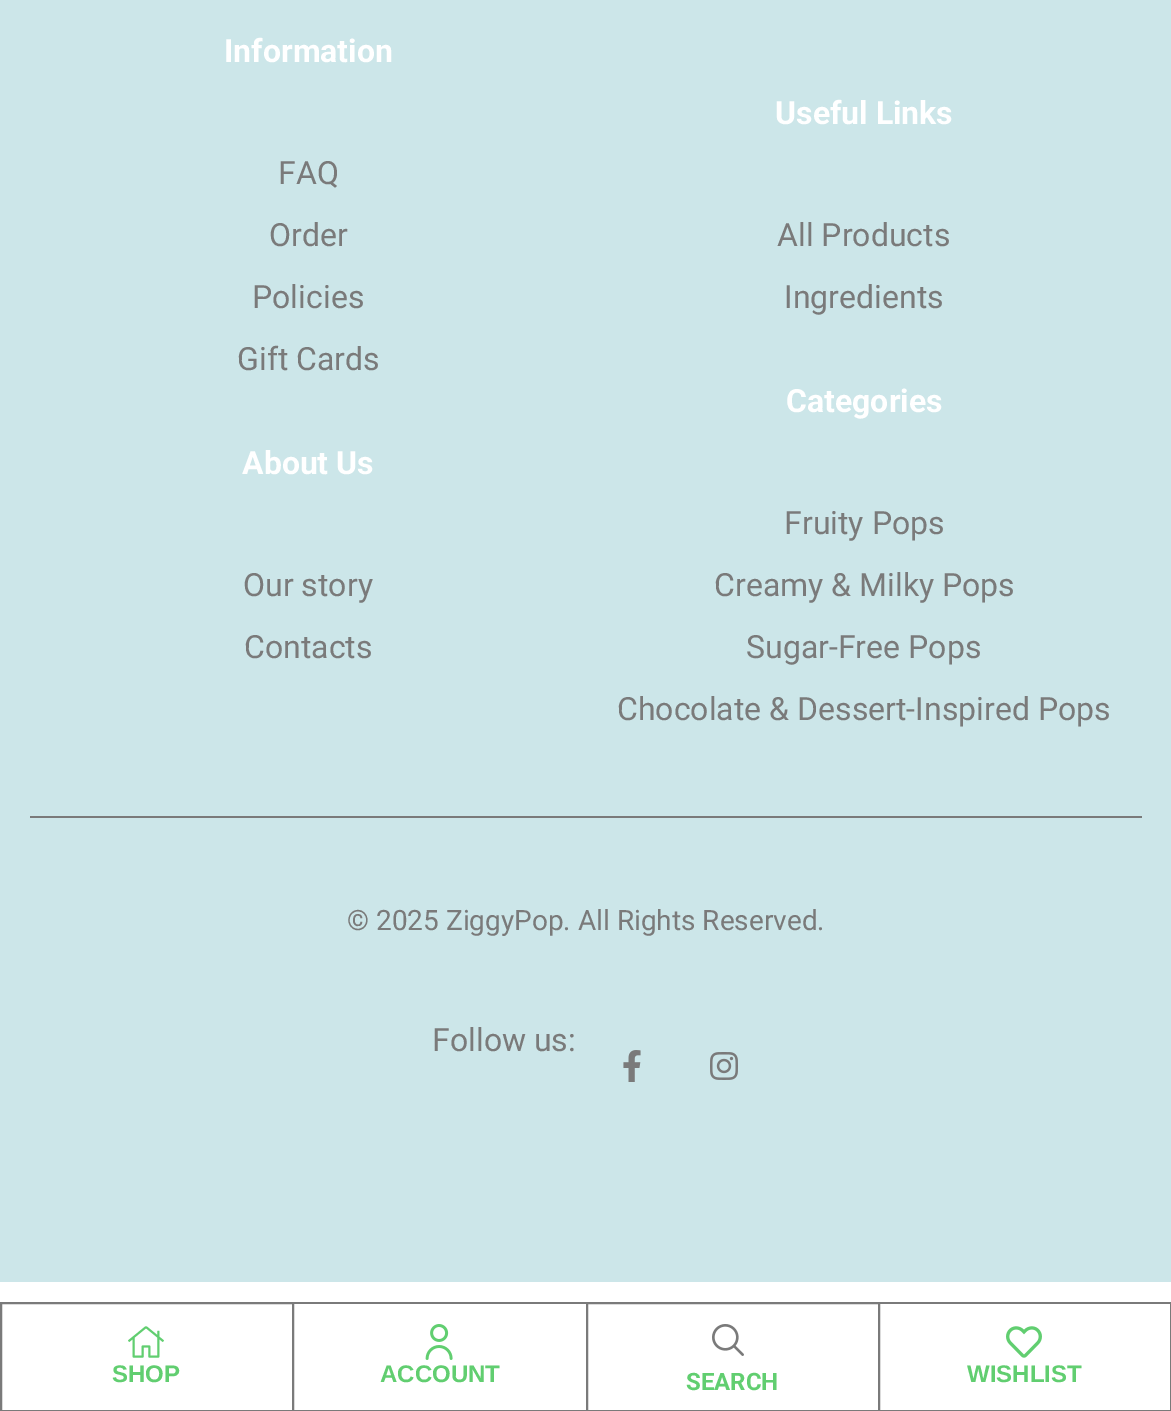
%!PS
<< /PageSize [1171 1411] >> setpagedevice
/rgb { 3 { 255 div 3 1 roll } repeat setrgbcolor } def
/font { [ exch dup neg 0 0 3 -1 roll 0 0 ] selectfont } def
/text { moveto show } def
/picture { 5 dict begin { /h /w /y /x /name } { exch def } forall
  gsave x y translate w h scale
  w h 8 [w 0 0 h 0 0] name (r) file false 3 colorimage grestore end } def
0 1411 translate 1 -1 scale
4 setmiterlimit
255 255 255 rgb
0 0 1171 1411 rectfill
204 230 233 rgb
0 0 1171 1282 rectfill
122 122 122 rgb
30 816 1112 2 rectfill
(img_01.rgb) 623 1050 18 32 picture
(img_02.rgb) 710 1052 28 28 picture
2 setlinewidth
1 1303 292 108 rectstroke
(img_03.rgb) 128 1326 36 32 picture
294 1302 292 2 rectfill
294 1410 292 1 rectfill
(img_04.rgb) 425 1324 28 36 picture
587 1303 292 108 rectstroke
(img_05.rgb) 712 1324 32 32 picture
880 1302 291 2 rectfill
1170 1302 1 109 rectfill
880 1410 291 1 rectfill
(img_06.rgb) 1006 1326 36 32 picture
/Roboto-Bold 32 font
255 255 255 rgb
(Information) 224 62 text
/Roboto-Regular 32 font
122 122 122 rgb
(FAQ) 278 184 text
(Order) 269 246 text
(Policies) 252 308 text
(Gift Cards) 237 370 text
/Roboto-Bold 32 font
255 255 255 rgb
(Useful Links) 775 124 text
/Roboto-Regular 32 font
122 122 122 rgb
(All Products) 777 246 text
(Ingredients) 784 308 text
/Roboto-Bold 32 font
255 255 255 rgb
(About Us) 242 474 text
/Roboto-Regular 32 font
122 122 122 rgb
(Our story) 243 596 text
(Contacts) 244 658 text
/Roboto-Bold 32 font
255 255 255 rgb
(Categories) 786 412 text
/Roboto-Regular 32 font
122 122 122 rgb
(Fruity Pops) 784 534 text
(Creamy & Milky Pops) 714 596 text
(Sugar-Free Pops) 746 658 text
(Chocolate & Dessert-Inspired Pops) 617 720 text
/Roboto-Regular 28 font
(© 2025 ZiggyPop. All Rights Reserved.) 347 930 text
/Roboto-Regular 32 font
(Follow us:) 432 1051 text
/LiberationSans-Bold 24 font
97 206 112 rgb
(SHOP) 112 1382 text
(ACCOUNT) 380 1382 text
/Roboto-Bold 24 font
(SEARCH) 686 1390 text
/LiberationSans-Bold 24 font
(WISHLIST) 967 1382 text
showpage
